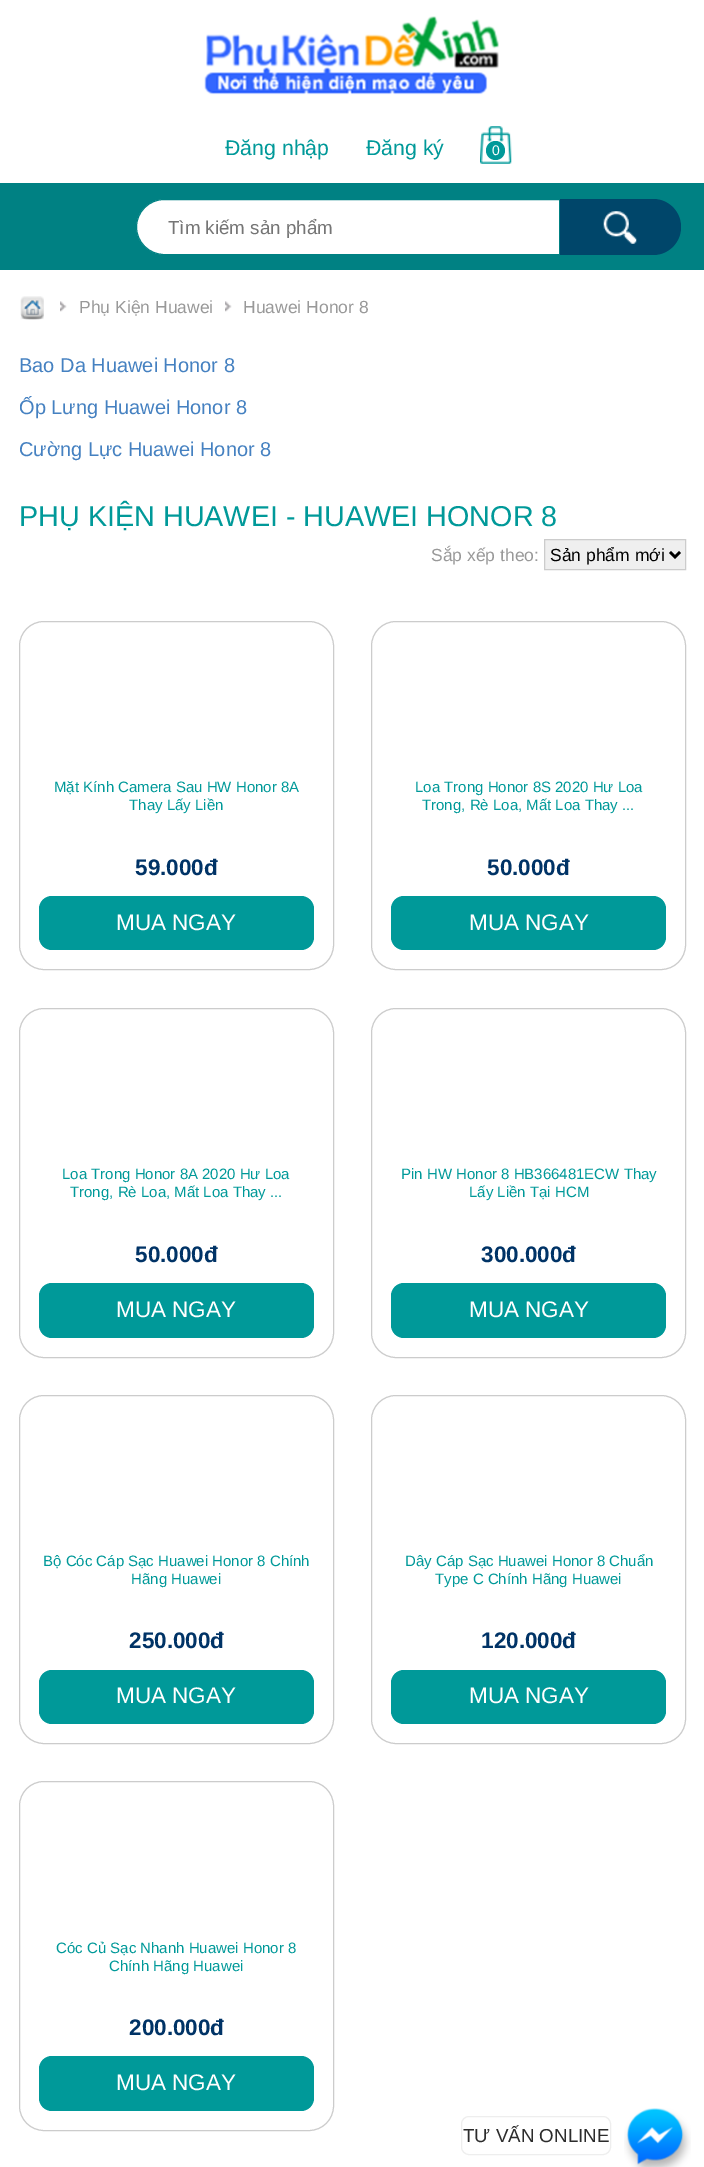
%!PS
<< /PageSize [704 2167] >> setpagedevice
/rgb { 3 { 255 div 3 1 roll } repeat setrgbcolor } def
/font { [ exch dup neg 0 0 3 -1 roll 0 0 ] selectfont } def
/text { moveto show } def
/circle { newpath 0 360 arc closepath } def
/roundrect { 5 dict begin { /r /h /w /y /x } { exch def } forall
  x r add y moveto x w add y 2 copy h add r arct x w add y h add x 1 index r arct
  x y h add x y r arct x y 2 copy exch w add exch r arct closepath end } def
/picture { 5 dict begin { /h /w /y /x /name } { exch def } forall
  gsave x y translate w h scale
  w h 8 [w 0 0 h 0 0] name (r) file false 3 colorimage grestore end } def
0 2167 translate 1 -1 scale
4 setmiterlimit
255 255 255 rgb
0 0 704 2167 rectfill
(img_01.rgb) 204 16 295 79 picture
(img_02.rgb) 480 126 32 38 picture
0 153 153 rgb
495.5 150.5 9.5 circle fill
0 129 131 rgb
0 183 704 87 rectfill
255 255 255 rgb
164 199.5 moveto 395.5 0 rlineto 0 55 rlineto -395.5 0 rlineto -15 0 -27.5 -12.5 -27.5 -27.5 rcurveto 0 -15 12.5 -27.5 27.5 -27.5 rcurveto closepath gsave fill grestore
0 129 131 rgb
stroke
0 70 106 rgb
560 199 moveto 93 0 rlineto 15.5 0 28 12.5 28 28 rcurveto 0 15.5 -12.5 28 -28 28 rcurveto -93 0 rlineto closepath fill
(img_03.rgb) 603 211 34 33 picture
(img_04.rgb) 20 296 24 24 picture
(img_05.rgb) 60 301 7 11 picture
(img_05.rgb) 225 301 7 11 picture
239 239 239 rgb
544.5 539.5 moveto 141 0 rlineto 0 30 rlineto -141 0 rlineto closepath gsave fill grestore
204 204 204 rgb
stroke
0 0 0 rgb
2.5 setlinewidth
670 552 moveto 5 5 rlineto 5 -5 rlineto stroke
204 204 204 rgb
1 setlinewidth
19.5 621.5 314 348 24.5 roundrect stroke
0 153 153 rgb
39 896 275 54 13 roundrect fill
204 204 204 rgb
371.5 621.5 314 348 24.5 roundrect stroke
0 153 153 rgb
391 896 275 54 13 roundrect fill
204 204 204 rgb
19.5 1008.5 314 349 24.5 roundrect stroke
0 153 153 rgb
39 1283 275 55 13 roundrect fill
204 204 204 rgb
371.5 1008.5 314 349 24.5 roundrect stroke
0 153 153 rgb
391 1283 275 55 13 roundrect fill
204 204 204 rgb
19.5 1395.5 314 348 24.5 roundrect stroke
0 153 153 rgb
39 1670 275 54 13 roundrect fill
204 204 204 rgb
371.5 1395.5 314 348 24.5 roundrect stroke
0 153 153 rgb
391 1670 275 54 13 roundrect fill
204 204 204 rgb
19.5 1781.5 314 349 24.5 roundrect stroke
0 153 153 rgb
39 2056 275 55 13 roundrect fill
238 238 238 rgb
461.5 2116.5 149 38 7.5 roundrect stroke
(img_06.rgb) 624 2108 67 59 picture
/LiberationSans-Regular 21.25 font
0 153 153 rgb
(Đăng nhập) 225 155 text
(Đăng ký) 366 155 text
/LiberationSans-Regular 14 font
255 255 255 rgb
(0) 492 155 text
/LiberationSans-Regular 18.75 font
117 117 117 rgb
(Tìm kiếm sản phẩm) 168 234 text
/LiberationSans-Regular 17.5 font
153 153 153 rgb
(Phụ Kiện Huawei) 79 313 text
(Huawei Honor 8) 243 313 text
/LiberationSans-Regular 20 font
69 129 193 rgb
(Bao Da Huawei Honor 8) 19 372 text
(Ốp Lưng Huawei Honor 8) 19 414 text
(Cường Lực Huawei Honor 8) 19 456 text
/LiberationSans-Regular 28.75 font
0 153 153 rgb
(PHỤ KIỆN HUAWEI - HUAWEI HONOR 8) 19 526 text
/LiberationSans-Regular 17.5 font
153 153 153 rgb
(Sắp xếp theo:) 431 561 text
0 0 0 rgb
(Sản phẩm mới) 550 561 text
/LiberationSans-Regular 15 font
0 153 153 rgb
(Mặt Kính Camera Sau HW Honor 8A) 54 792 text
(Thay Lấy Liền) 129 810 text
/LiberationSans-Bold 22.5 font
0 51 102 rgb
(59.000đ) 135 875 text
/LiberationSans-Regular 22.5 font
255 255 255 rgb
(MUA NGAY) 116 930 text
/LiberationSans-Regular 15 font
0 153 153 rgb
(Loa Trong Honor 8S 2020 Hư Loa) 415 792 text
(Trong, Rè Loa, Mất Loa Thay ...) 422 810 text
/LiberationSans-Bold 22.5 font
0 51 102 rgb
(50.000đ) 487 875 text
/LiberationSans-Regular 22.5 font
255 255 255 rgb
(MUA NGAY) 469 930 text
/LiberationSans-Regular 15 font
0 153 153 rgb
(Loa Trong Honor 8A 2020 Hư Loa) 62 1179 text
(Trong, Rè Loa, Mất Loa Thay ...) 70 1197 text
/LiberationSans-Bold 22.5 font
0 51 102 rgb
(50.000đ) 135 1262 text
/LiberationSans-Regular 22.5 font
255 255 255 rgb
(MUA NGAY) 116 1317 text
/LiberationSans-Regular 15 font
0 153 153 rgb
(Pin HW Honor 8 HB366481ECW Thay) 401 1179 text
(Lấy Liền Tại HCM) 469 1197 text
/LiberationSans-Bold 22.5 font
0 51 102 rgb
(300.000đ) 481 1262 text
/LiberationSans-Regular 22.5 font
255 255 255 rgb
(MUA NGAY) 469 1317 text
/LiberationSans-Regular 15 font
0 153 153 rgb
(Bộ Cóc Cáp Sạc Huawei Honor 8 Chính) 43 1566 text
(Hãng Huawei) 131 1584 text
/LiberationSans-Bold 22.5 font
0 51 102 rgb
(250.000đ) 129 1648 text
/LiberationSans-Regular 22.5 font
255 255 255 rgb
(MUA NGAY) 116 1703 text
/LiberationSans-Regular 15 font
0 153 153 rgb
(Dây Cáp Sạc Huawei Honor 8 Chuẩn) 405 1566 text
(Type C Chính Hãng Huawei) 435 1584 text
/LiberationSans-Bold 22.5 font
0 51 102 rgb
(120.000đ) 481 1648 text
/LiberationSans-Regular 22.5 font
255 255 255 rgb
(MUA NGAY) 469 1703 text
/LiberationSans-Regular 15 font
0 153 153 rgb
(Cóc Củ Sạc Nhanh Huawei Honor 8) 56 1953 text
(Chính Hãng Huawei) 109 1971 text
/LiberationSans-Bold 22.5 font
0 51 102 rgb
(200.000đ) 129 2035 text
/LiberationSans-Regular 22.5 font
255 255 255 rgb
(MUA NGAY) 116 2090 text
/LiberationSans-Regular 18.75 font
44 44 44 rgb
(TƯ VẤN ONLINE) 463 2142 text
showpage
